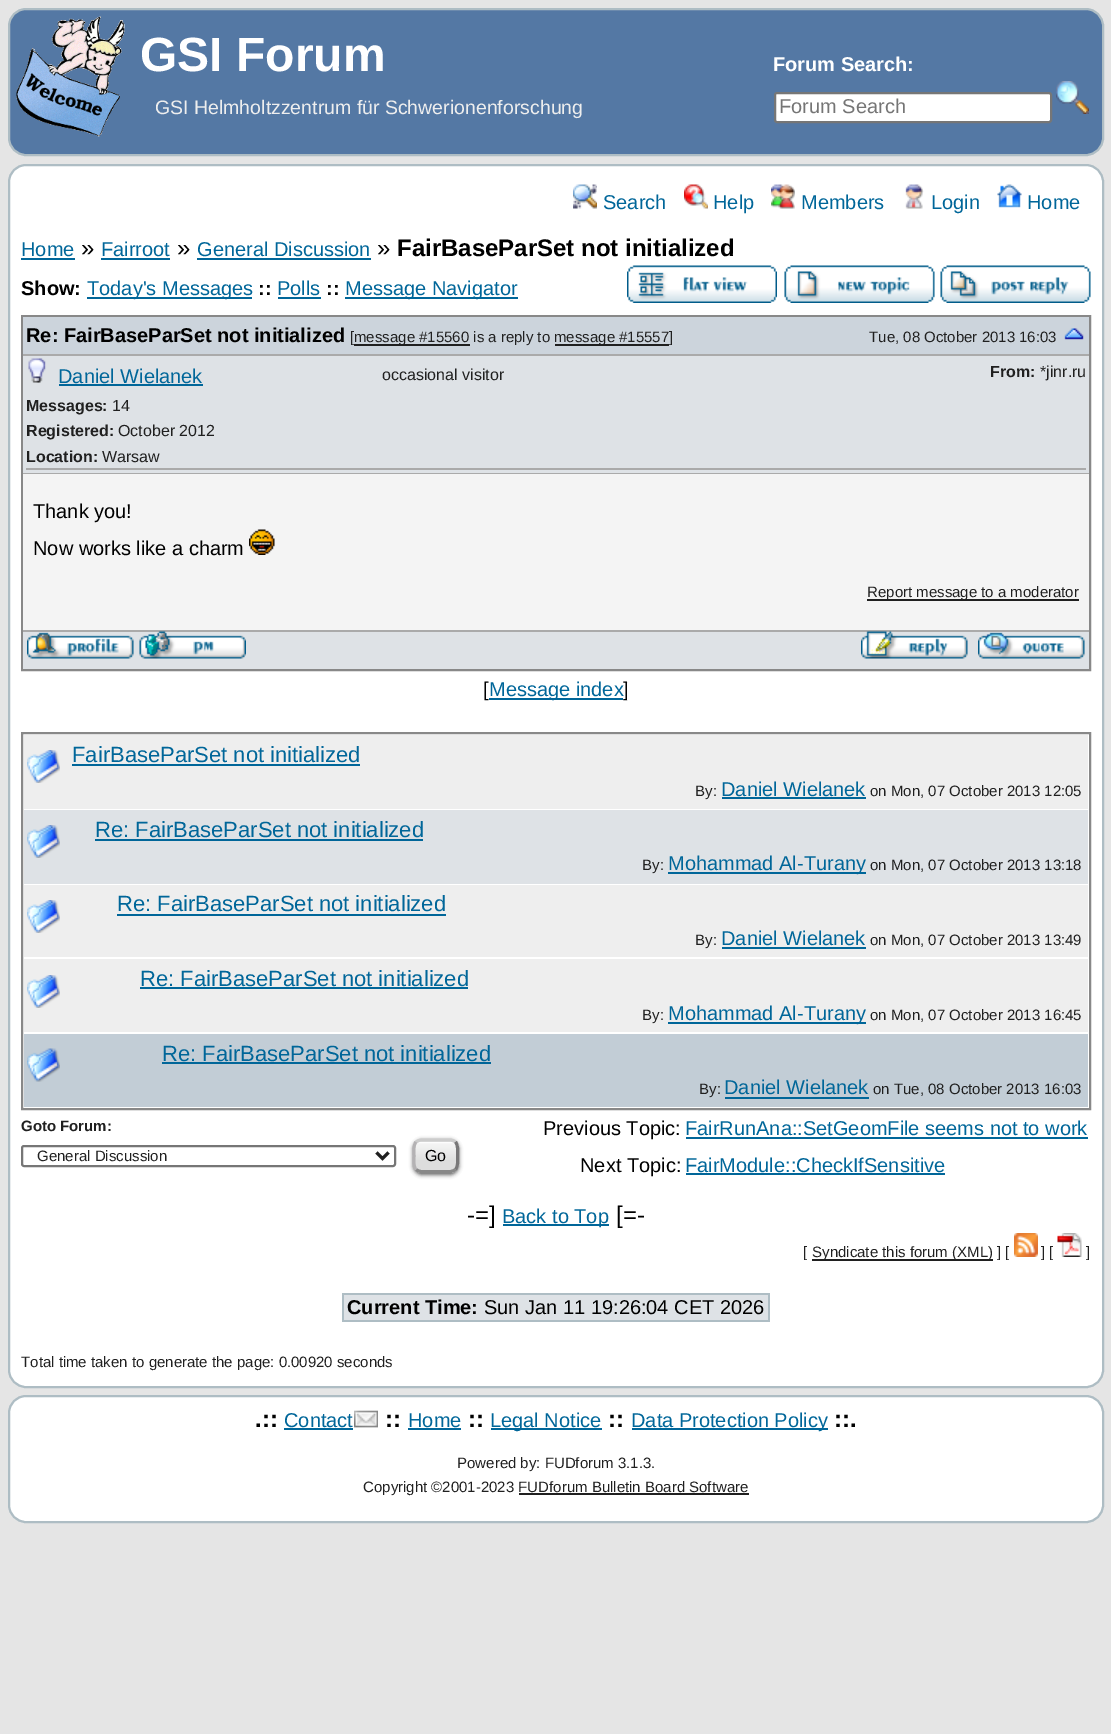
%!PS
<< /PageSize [1111 1734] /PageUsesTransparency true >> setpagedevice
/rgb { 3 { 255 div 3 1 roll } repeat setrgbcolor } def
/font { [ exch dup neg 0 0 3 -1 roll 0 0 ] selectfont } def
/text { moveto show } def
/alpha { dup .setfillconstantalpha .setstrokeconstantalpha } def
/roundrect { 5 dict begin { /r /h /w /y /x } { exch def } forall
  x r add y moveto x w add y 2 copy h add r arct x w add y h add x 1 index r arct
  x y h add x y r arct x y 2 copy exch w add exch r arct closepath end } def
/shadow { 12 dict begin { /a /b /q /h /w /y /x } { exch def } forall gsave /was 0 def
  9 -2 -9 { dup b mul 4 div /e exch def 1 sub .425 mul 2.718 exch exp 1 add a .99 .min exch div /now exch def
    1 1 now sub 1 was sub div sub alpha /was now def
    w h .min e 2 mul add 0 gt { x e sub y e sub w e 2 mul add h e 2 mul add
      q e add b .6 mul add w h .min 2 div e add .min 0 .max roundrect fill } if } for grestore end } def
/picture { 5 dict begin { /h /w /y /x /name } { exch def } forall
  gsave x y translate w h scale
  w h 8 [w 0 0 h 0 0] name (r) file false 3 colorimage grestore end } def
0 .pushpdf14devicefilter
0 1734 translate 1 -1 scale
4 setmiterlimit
229 229 229 rgb
0 0 1111 1734 rectfill
84 120 164 rgb
9 9 1094 146 17 roundrect gsave fill grestore
174 189 196 rgb
2 setlinewidth
stroke
(img_01.rgb) 16 16 109 121 picture
255 255 255 rgb
775 93 276 29 2 roundrect gsave fill grestore
118 118 118 rgb
stroke
(img_02.rgb) 1056 81 33 33 picture
255 255 255 rgb
9 165 1094 1222 17 roundrect gsave fill grestore
174 189 196 rgb
stroke
(img_03.rgb) 573 184 24 25 picture
(img_04.rgb) 684 184 24 25 picture
(img_05.rgb) 771 184 24 25 picture
(img_06.rgb) 905 184 19 25 picture
(img_07.rgb) 997 184 25 24 picture
0 102 153 rgb
21 258 54 2 rectfill
101 258 69 2 rectfill
197 258 174 2 rectfill
87 297 165 2 rectfill
278 297 43 2 rectfill
345 297 173 2 rectfill
(img_08.rgb) 627 265 150 38 picture
(img_09.rgb) 784 265 151 38 picture
(img_10.rgb) 940 265 151 38 picture
136 136 136 rgb
22 316 1068 354 rectstroke
204 212 220 rgb
23 317 1066 37 rectfill
170 170 170 rgb
23 354 1066 2 rectfill
32 32 32 rgb
354 344 116 2 rectfill
555 344 114 2 rectfill
(img_11.rgb) 1064 328 20 12 picture
222 226 230 rgb
23 356 1066 117 rectfill
170 170 170 rgb
23 473 1066 1 rectfill
26 468 1060 2 rectfill
(img_12.rgb) 28 358 18 25 picture
0 102 153 rgb
59 384 144 2 rectfill
244 244 244 rgb
23 474 1066 156 rectfill
170 170 170 rgb
23 630 1066 2 rectfill
(img_13.rgb) 249 529 26 26 picture
32 32 32 rgb
867 599 212 2 rectfill
222 226 230 rgb
23 632 1066 37 rectfill
(img_14.rgb) 27 632 107 27 picture
(img_15.rgb) 139 631 107 28 picture
(img_16.rgb) 861 631 107 28 picture
(img_17.rgb) 978 632 107 27 picture
0 102 153 rgb
489 698 134 2 rectfill
136 136 136 rgb
22 733 1068 376 rectstroke
238 238 238 rgb
24 735 1064 74 rectfill
(img_18.rgb) 27 750 33 33 picture
0 102 153 rgb
72 764 288 2 rectfill
722 797 144 2 rectfill
222 226 230 rgb
24 810 1064 74 rectfill
(img_19.rgb) 27 825 33 33 picture
0 102 153 rgb
95 839 328 2 rectfill
668 872 198 2 rectfill
238 238 238 rgb
24 885 1064 72 rectfill
(img_18.rgb) 27 900 33 33 picture
0 102 153 rgb
117 914 329 2 rectfill
722 947 144 2 rectfill
238 238 238 rgb
24 959 1064 73 rectfill
(img_18.rgb) 27 975 33 33 picture
0 102 153 rgb
140 987 328 2 rectfill
668 1022 198 2 rectfill
194 205 214 rgb
24 1034 1064 73 rectfill
(img_20.rgb) 27 1048 33 34 picture
0 102 153 rgb
162 1062 329 2 rectfill
725 1097 144 2 rectfill
686 1137 402 2 rectfill
686 1173 259 2 rectfill
118 118 118 rgb
22 1146 373 20 2 roundrect stroke
32 32 32 rgb
3 setlinewidth
376.5 1152.5 moveto 6 6 rlineto 6 -6 rlineto stroke
0 0 0 rgb
413 1140 46 35 9 2 0.6 shadow
221 221 221 rgb
413 1139 46 34 9 roundrect fill
(img_21.rgb) 413 1141 46 19 picture
204 204 204 rgb
416 1142 moveto 1.5 -1 3.5 -2 5.5 -2 rcurveto 28.5 0 rlineto 2 0 4 1 5.5 2 rcurveto stroke
120 119 120 rgb
455.5 1142 moveto 3 3.5 2 9.5 2 14 rcurveto 0 4 1 10 -2 13.5 rcurveto stroke
136 136 136 rgb
455.5 1169.5 moveto -1.5 1 -3.5 2 -5.5 2 rcurveto -28.5 0 rlineto -2 0 -4 -1 -5.5 -2 rcurveto stroke
180 178 180 rgb
416 1169.5 moveto -3 -3.5 -2 -9.5 -2 -13.5 rcurveto 0 -4.5 -1 -10.5 2 -14 rcurveto stroke
0 102 153 rgb
503 1224 106 2 rectfill
32 32 32 rgb
812 1259 181 2 rectfill
(img_22.rgb) 1014 1233 24 24 picture
(img_23.rgb) 1057 1233 25 24 picture
174 189 196 rgb
342 1293 428 2 rectfill
342 1320 137 2 rectfill
342 1293 2 29 rectfill
222 226 230 rgb
344 1295 424 25 rectfill
174 189 196 rgb
768 1293 2 29 rectfill
479 1320 291 2 rectfill
255 255 255 rgb
9 1396 1094 126 17 roundrect gsave fill grestore
174 189 196 rgb
2 setlinewidth
stroke
0 102 153 rgb
284 1428 69 2 rectfill
(img_24.rgb) 354 1410 24 18 picture
408 1428 53 2 rectfill
491 1428 111 2 rectfill
632 1428 196 2 rectfill
32 32 32 rgb
519 1493 230 2 rectfill
/LiberationSans-Bold 48 font
255 255 255 rgb
(GSI Forum) 140 71 text
/LiberationSans-Bold 20 font
(Forum Search:) 773 71 text
/LiberationSans-Regular 20 font
117 117 117 rgb
(Forum Search) 779 113 text
/LiberationSans-Regular 19.5 font
238 238 238 rgb
(GSI Helmholtzzentrum für Schwerionenforschung) 155 114 text
/LiberationSans-Regular 20 font
0 102 153 rgb
(Search) 603 209 text
(Help) 713 209 text
(Members) 801 209 text
(Login) 931 209 text
(Home) 1027 209 text
(Home) 21 256 text
/LiberationSans-Regular 24 font
0 0 0 rgb
(») 81 256 text
/LiberationSans-Regular 20 font
0 102 153 rgb
(Fairroot) 101 256 text
/LiberationSans-Regular 24 font
0 0 0 rgb
(») 177 256 text
/LiberationSans-Regular 20 font
0 102 153 rgb
(General Discussion) 197 256 text
/LiberationSans-Regular 24 font
0 0 0 rgb
(») 377 256 text
/LiberationSans-Bold 24 font
(FairBaseParSet not initialized) 397 256 text
/LiberationSans-Bold 20 font
(Show:) 21 295 text
/LiberationSans-Regular 20 font
0 102 153 rgb
(Today's Messages) 87 295 text
/LiberationSans-Bold 20 font
0 0 0 rgb
(::) 258 295 text
/LiberationSans-Regular 20 font
0 102 153 rgb
(Polls) 277 295 text
/LiberationSans-Bold 20 font
0 0 0 rgb
(::) 326 295 text
/LiberationSans-Regular 20 font
0 102 153 rgb
(Message Navigator) 345 295 text
/LiberationSans-Bold 20 font
0 0 0 rgb
(Re: FairBaseParSet not initialized) 26 342 text
/LiberationSans-Regular 15 font
32 32 32 rgb
([) 350 342 text
(message #15560 is a reply to) 354 342 text
(message #15557]) 554 342 text
(Tue, 08 October 2013 16:03) 869 342 text
/LiberationSans-Regular 20 font
0 102 153 rgb
(Daniel Wielanek) 58 383 text
/LiberationSans-Bold 16 font
32 32 32 rgb
(Messages:) 26 411 text
/LiberationSans-Regular 16 font
(14) 112 411 text
/LiberationSans-Bold 16 font
(Registered:) 26 436 text
/LiberationSans-Regular 16 font
(October 2012) 118 436 text
/LiberationSans-Bold 16 font
(Location:) 26 462 text
/LiberationSans-Regular 16 font
(Warsaw) 102 462 text
(occasional visitor) 382 380 text
/LiberationSans-Bold 16 font
(From:) 990 377 text
/LiberationSans-Regular 16 font
(*jinr.ru) 1040 377 text
/LiberationSans-Regular 20 font
0 0 0 rgb
(Thank you!) 33 518 text
(Now works like a charm) 33 555 text
/LiberationSans-Regular 15 font
32 32 32 rgb
(Report message to a moderator) 867 597 text
/LiberationSans-Regular 20 font
0 0 0 rgb
([) 483 696 text
0 102 153 rgb
(Message index) 489 696 text
0 0 0 rgb
(]) 623 696 text
/LiberationSans-Regular 22 font
0 102 153 rgb
(FairBaseParSet not initialized) 72 762 text
/LiberationSans-Regular 15 font
32 32 32 rgb
(By:) 695 796 text
/LiberationSans-Regular 20 font
0 102 153 rgb
(Daniel Wielanek) 721 796 text
/LiberationSans-Regular 15 font
32 32 32 rgb
(on Mon, 07 October 2013 12:05) 870 796 text
/LiberationSans-Regular 22 font
0 102 153 rgb
(Re: FairBaseParSet not initialized) 95 837 text
/LiberationSans-Regular 15 font
32 32 32 rgb
(By:) 642 870 text
/LiberationSans-Regular 20 font
0 102 153 rgb
(Mohammad Al-Turany) 668 870 text
/LiberationSans-Regular 15 font
32 32 32 rgb
(on Mon, 07 October 2013 13:18) 870 870 text
/LiberationSans-Regular 22 font
0 102 153 rgb
(Re: FairBaseParSet not initialized) 117 911 text
/LiberationSans-Regular 15 font
32 32 32 rgb
(By:) 695 945 text
/LiberationSans-Regular 20 font
0 102 153 rgb
(Daniel Wielanek) 721 945 text
/LiberationSans-Regular 15 font
32 32 32 rgb
(on Mon, 07 October 2013 13:49) 870 945 text
/LiberationSans-Regular 22 font
0 102 153 rgb
(Re: FairBaseParSet not initialized) 140 986 text
/LiberationSans-Regular 15 font
32 32 32 rgb
(By:) 642 1020 text
/LiberationSans-Regular 20 font
0 102 153 rgb
(Mohammad Al-Turany) 668 1020 text
/LiberationSans-Regular 15 font
32 32 32 rgb
(on Mon, 07 October 2013 16:45) 870 1020 text
/LiberationSans-Regular 22 font
0 102 153 rgb
(Re: FairBaseParSet not initialized) 162 1061 text
/LiberationSans-Regular 15 font
32 32 32 rgb
(By:) 699 1094 text
/LiberationSans-Regular 20 font
0 102 153 rgb
(Daniel Wielanek) 724 1094 text
/LiberationSans-Regular 15 font
32 32 32 rgb
(on Tue, 08 October 2013 16:03) 873 1094 text
/LiberationSans-Bold 15 font
(Goto Forum:) 21 1131 text
/LiberationSans-Regular 20 font
0 0 0 rgb
(Previous Topic:) 543 1135 text
0 102 153 rgb
(FairRunAna::SetGeomFile seems not to work) 685 1135 text
0 0 0 rgb
(Next Topic:) 580 1172 text
0 102 153 rgb
(FairModule::CheckIfSensitive) 685 1172 text
/LiberationSans-Regular 15 font
32 32 32 rgb
(General Discussion) 37 1161 text
/LiberationSans-Regular 16 font
0 0 0 rgb
(Go) 425 1161 text
/LiberationSans-Regular 24 font
(-=]) 467 1223 text
/LiberationSans-Regular 20 font
0 102 153 rgb
(Back to Top) 502 1223 text
/LiberationSans-Regular 24 font
0 0 0 rgb
([=-) 616 1223 text
/LiberationSans-Regular 15 font
32 32 32 rgb
([) 803 1257 text
(Syndicate this forum \(XML\) ] [) 812 1257 text
(] [) 1041 1257 text
(]) 1086 1257 text
/LiberationSans-Bold 20 font
0 0 0 rgb
(Current Time:) 347 1314 text
/LiberationSans-Regular 20 font
(Sun Jan 11 19:26:04 CET 2026) 484 1314 text
/LiberationSans-Regular 15 font
32 32 32 rgb
(Total time taken to generate the page: 0.00920 seconds) 21 1367 text
/LiberationSans-Bold 24 font
0 0 0 rgb
(.::) 255 1427 text
/LiberationSans-Regular 20 font
0 102 153 rgb
(Contact) 284 1427 text
/LiberationSans-Bold 24 font
0 0 0 rgb
(::) 385 1427 text
/LiberationSans-Regular 20 font
0 102 153 rgb
(Home) 408 1427 text
/LiberationSans-Bold 24 font
0 0 0 rgb
(::) 468 1427 text
/LiberationSans-Regular 20 font
0 102 153 rgb
(Legal Notice) 490 1427 text
/LiberationSans-Bold 24 font
0 0 0 rgb
(::) 608 1427 text
/LiberationSans-Regular 20 font
0 102 153 rgb
(Data Protection Policy) 631 1427 text
/LiberationSans-Bold 24 font
0 0 0 rgb
(::.) 834 1427 text
/LiberationSans-Regular 15 font
32 32 32 rgb
(Powered by: FUDforum 3.1.3.) 457 1468 text
(Copyright ©2001-2023 FUDforum Bulletin Board Software) 363 1492 text
.poppdf14devicefilter showpage
